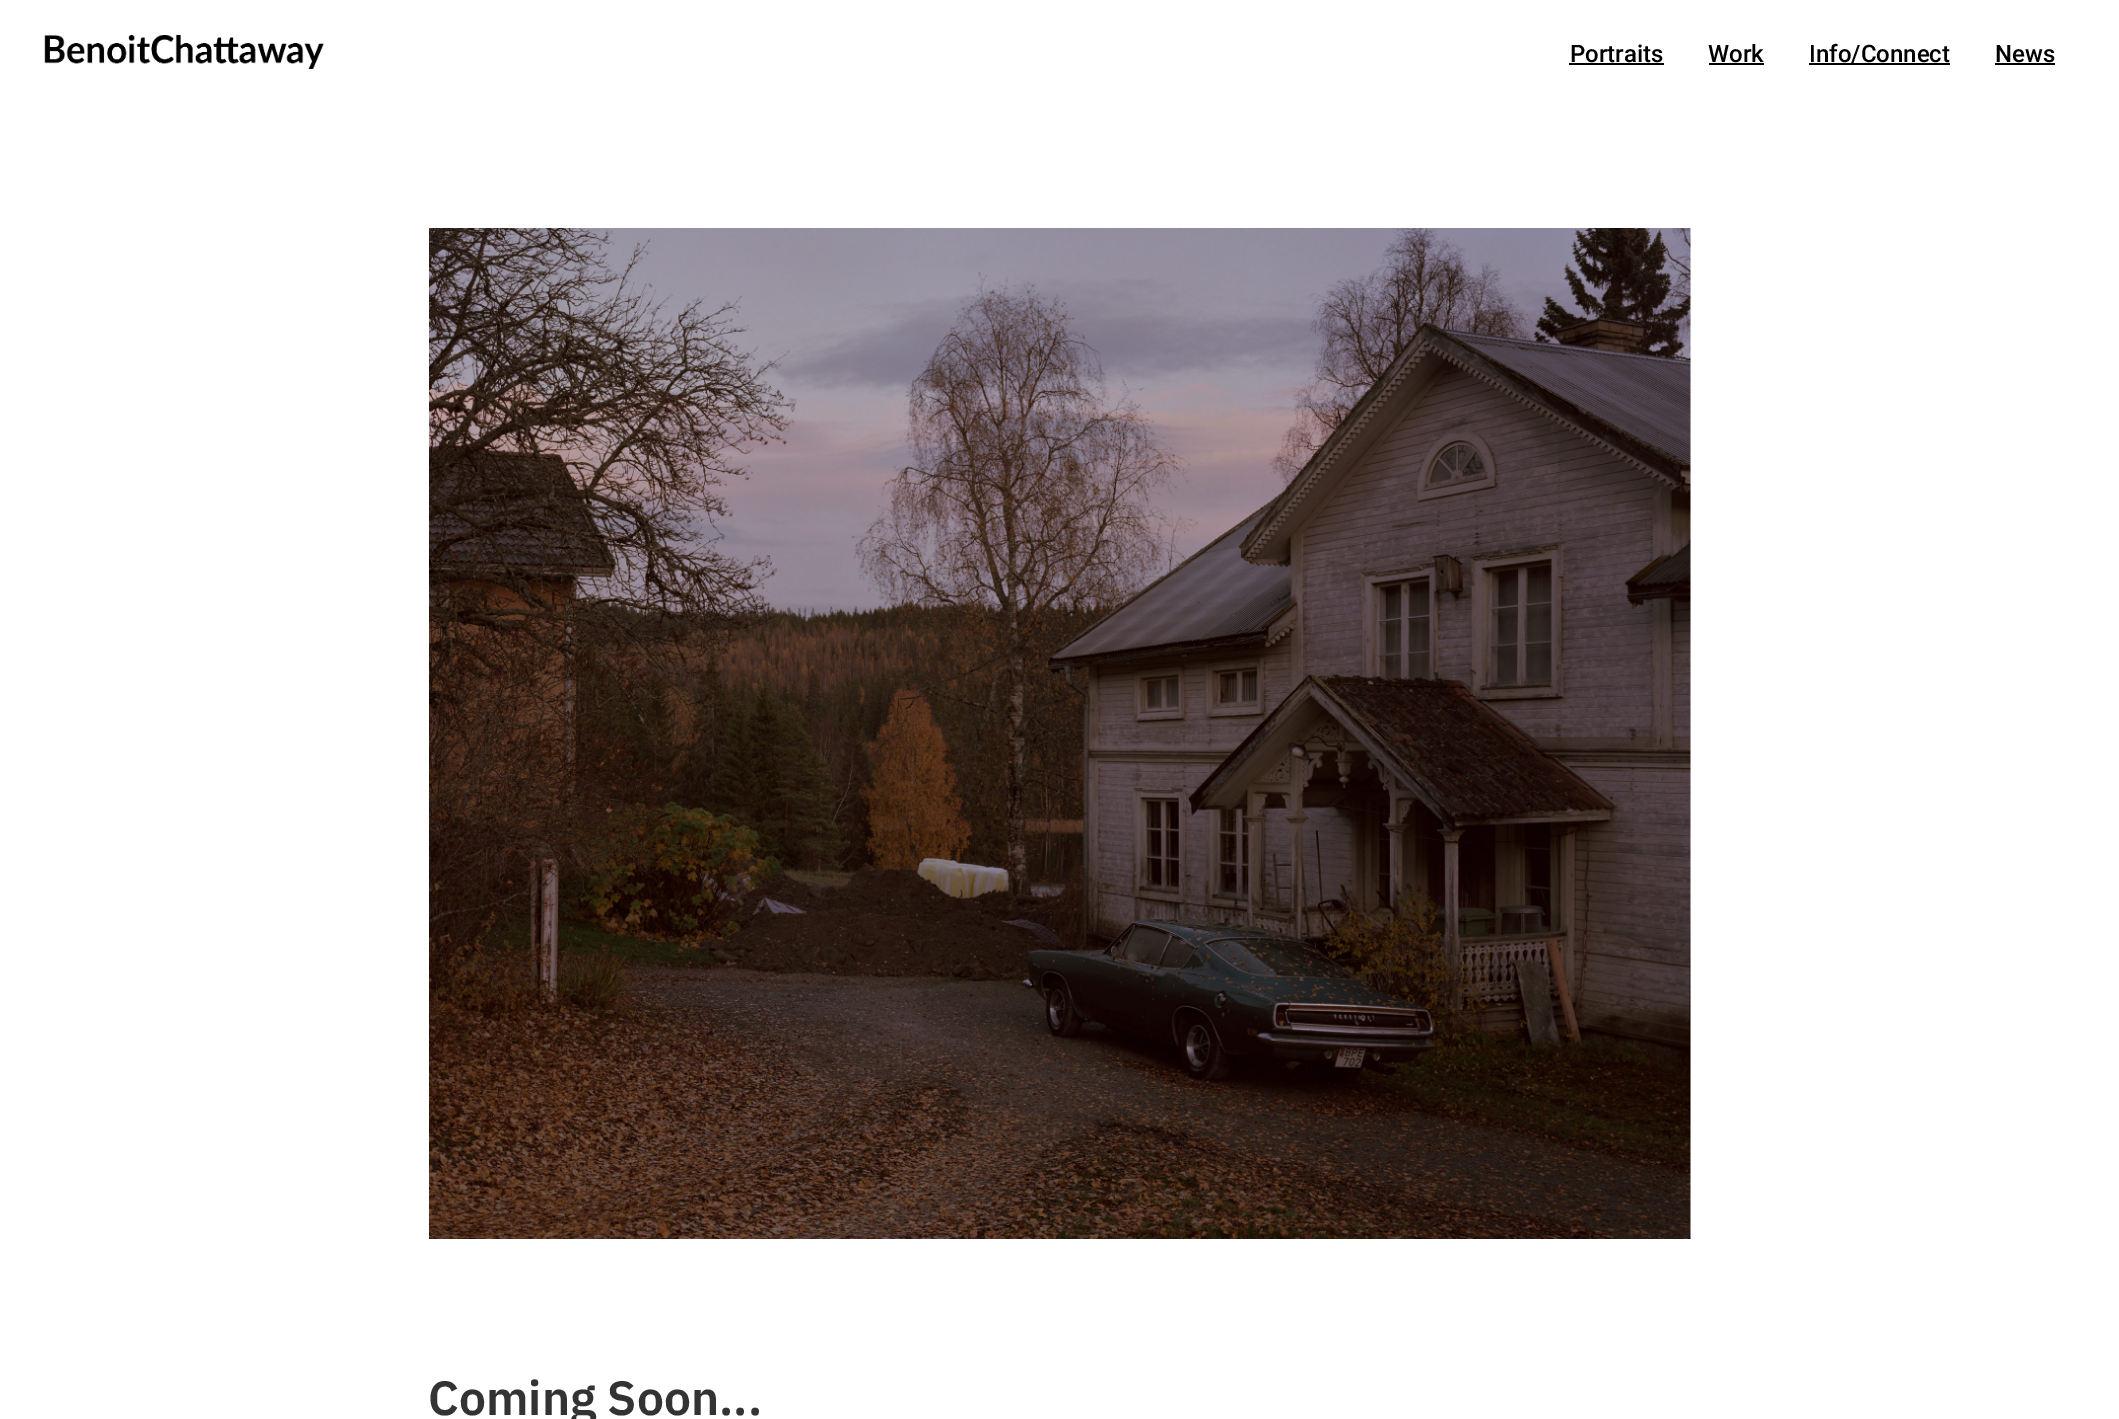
%!PS
<< /PageSize [2119 1419] >> setpagedevice
/rgb { 3 { 255 div 3 1 roll } repeat setrgbcolor } def
/font { [ exch dup neg 0 0 3 -1 roll 0 0 ] selectfont } def
/text { moveto show } def
/picture { 5 dict begin { /h /w /y /x /name } { exch def } forall
  gsave x y translate w h scale
  w h 8 [w 0 0 h 0 0] name (r) file false 3 colorimage grestore end } def
0 1419 translate 1 -1 scale
4 setmiterlimit
255 255 255 rgb
0 0 2119 1419 rectfill
(img_01.rgb) 44 35 280 34 picture
0 0 0 rgb
1569 63 95 2 rectfill
1709 63 55 2 rectfill
1809 63 141 2 rectfill
1995 63 60 2 rectfill
(img_02.rgb) 429 228 1262 1011 picture
/Roboto-Medium 24 font
(Portraits) 1570 62 text
(Work) 1708 62 text
(Info/Connect) 1809 62 text
(News) 1995 62 text
/IBMPlexSans-SemiBold 48 font
51 51 51 rgb
(Coming Soon...) 428 1415 text
showpage
